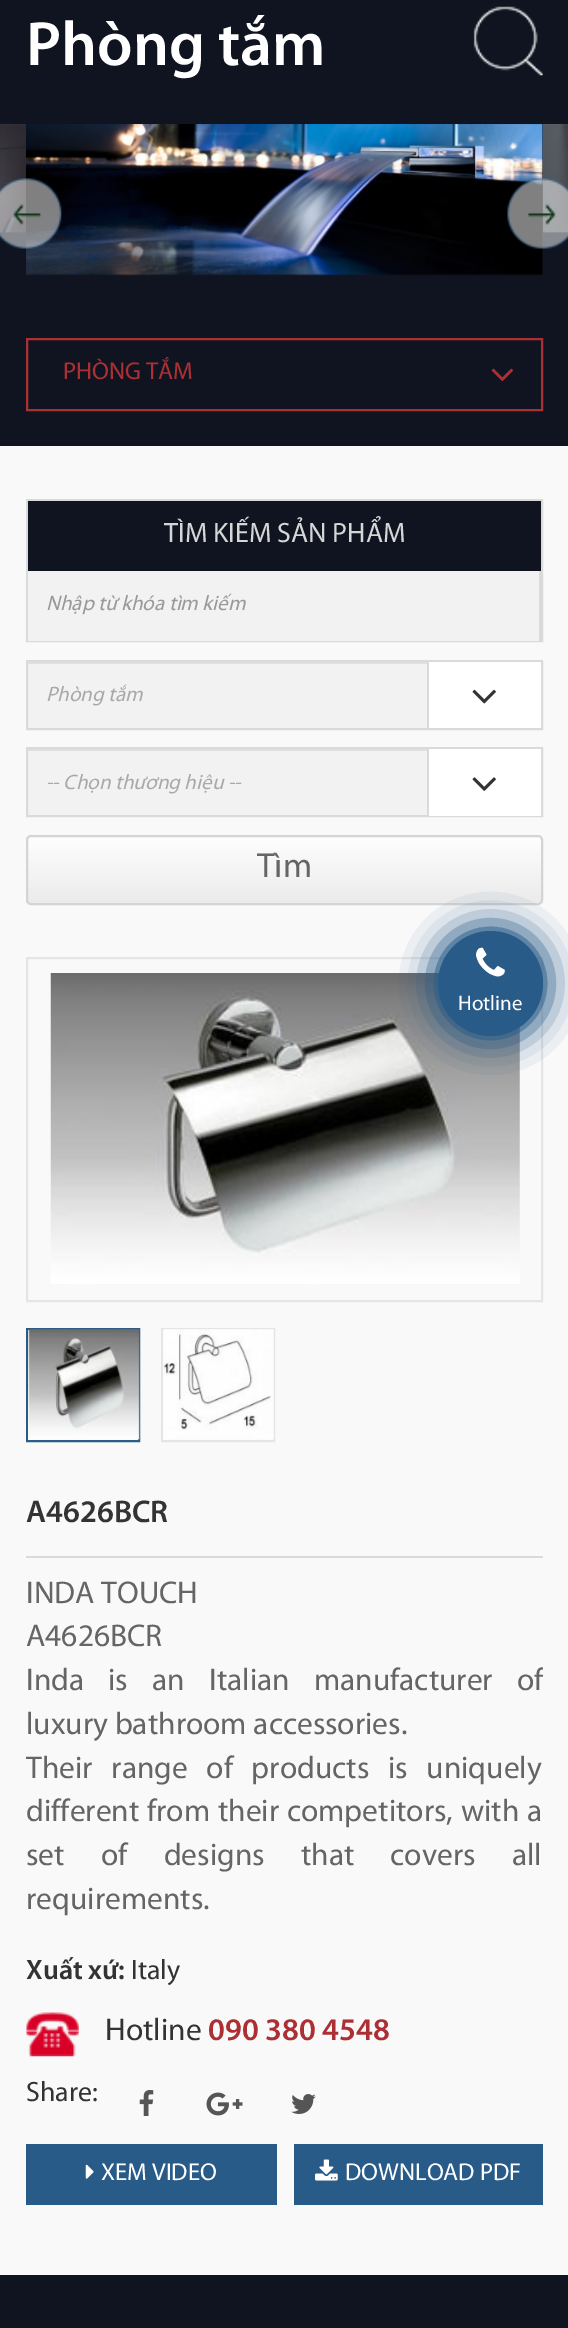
%!PS
<< /PageSize [568 2328] /PageUsesTransparency true >> setpagedevice
/rgb { 3 { 255 div 3 1 roll } repeat setrgbcolor } def
/font { [ exch dup neg 0 0 3 -1 roll 0 0 ] selectfont } def
/text { moveto show } def
/alpha { dup .setfillconstantalpha .setstrokeconstantalpha } def
/circle { newpath 0 360 arc closepath } def
/roundrect { 5 dict begin { /r /h /w /y /x } { exch def } forall
  x r add y moveto x w add y 2 copy h add r arct x w add y h add x 1 index r arct
  x y h add x y r arct x y 2 copy exch w add exch r arct closepath end } def
/shadow { 12 dict begin { /a /b /q /h /w /y /x } { exch def } forall gsave /was 0 def
  9 -2 -9 { dup b mul 4 div /e exch def 1 sub .425 mul 2.718 exch exp 1 add a .99 .min exch div /now exch def
    1 1 now sub 1 was sub div sub alpha /was now def
    w h .min e 2 mul add 0 gt { x e sub y e sub w e 2 mul add h e 2 mul add
      q e add b .6 mul add w h .min 2 div e add .min 0 .max roundrect fill } if } for grestore end } def
/picture { 5 dict begin { /h /w /y /x /name } { exch def } forall
  gsave x y translate w h scale
  w h 8 [w 0 0 h 0 0] name (r) file false 3 colorimage grestore end } def
0 .pushpdf14devicefilter
0 2328 translate 1 -1 scale
4 setmiterlimit
15 20 32 rgb
0 0 568 2328 rectfill
(img_01.rgb) 473 6 70 70 picture
(img_02.rgb) 0 124 26 109 picture
(img_03.rgb) 26 124 517 152 picture
(img_04.rgb) 543 124 25 109 picture
(img_05.rgb) 0 178 62 71 picture
(img_06.rgb) 507 178 61 71 picture
172 47 52 rgb
2 setlinewidth
27 339 515 71 rectstroke
(img_07.rgb) 491 368 22 14 picture
249 249 249 rgb
0 446 568 1829 rectfill
218 218 218 rgb
27 500 515 141 rectstroke
15 20 32 rgb
28 501 513 70 rectfill
242 242 242 rgb
28 571 511 70 rectfill
218 218 218 rgb
539 571 2 70 rectfill
242 242 242 rgb
28 664 399 64 rectfill
224 224 224 rgb
28 662 399 2 rectfill
218 218 218 rgb
27 661 515 68 rectstroke
255 255 255 rgb
429 662 112 66 rectfill
218 218 218 rgb
427 662 2 66 rectfill
(img_08.rgb) 472 689 24 15 picture
242 242 242 rgb
28 751 399 64 rectfill
224 224 224 rgb
28 749 399 2 rectfill
218 218 218 rgb
27 748 515 68 rectstroke
255 255 255 rgb
429 749 112 67 rectfill
218 218 218 rgb
427 749 2 67 rectfill
(img_09.rgb) 472 777 24 14 picture
gsave
26 835 517 70 5 roundrect clip newpath
gsave 26 837 moveto 517 0 rlineto 0 66 rlineto -517 0 rlineto closepath clip newpath
<< /ShadingType 2 /ColorSpace /DeviceRGB /Coords [28 837 28 903] /Extend [true true] /Function << /FunctionType 2 /Domain [0 1] /C0 [0.996 0.996 0.996] /C1 [0.922 0.922 0.922] /N 1 >> >> shfill grestore
grestore
212 212 212 rgb
27 836 515 68 4 roundrect stroke
229 229 229 rgb
27 958 515 343 rectstroke
(img_10.rgb) 50 973 470 311 picture
40 91 136 rgb
27 1329 112 112 rectstroke
(img_11.rgb) 28 1328 112 113 picture
229 229 229 rgb
162 1329 112 112 rectstroke
(img_12.rgb) 163 1329 111 111 picture
218 218 218 rgb
26 1556 517 2 rectfill
(img_13.rgb) 26 2012 53 45 picture
(img_14.rgb) 139 2090 15 26 picture
(img_15.rgb) 206 2092 37 24 picture
(img_16.rgb) 291 2094 25 20 picture
40 91 136 rgb
26 2144 251 61 rectfill
(img_17.rgb) 85 2164 9 15 picture
294 2144 249 61 rectfill
(img_18.rgb) 315 2159 23 22 picture
490.5 983.5 52.5 circle fill
(img_19.rgb) 476 947 29 30 picture
gsave
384 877 moveto 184 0 rlineto 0 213 rlineto -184 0 rlineto closepath 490.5 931 moveto 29 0 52.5 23.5 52.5 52.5 rcurveto 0 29 -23.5 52.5 -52.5 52.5 rcurveto -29 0 -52.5 -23.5 -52.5 -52.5 rcurveto 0 -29 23.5 -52.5 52.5 -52.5 rcurveto closepath eoclip newpath
438 931 105 105 52.5 17.5 1 shadow
438 931 105 105 52.5 17.5 1 shadow
grestore
/Myriad-SemiBold 63 font
255 255 255 rgb
(Phòng tắm) 26 65 text
/Myriad-Regular 24.5 font
172 47 52 rgb
(PHÒNG TẮM) 63 379 text
/Myriad-Regular 28 font
214 214 214 rgb
(TÌM KIẾM SẢN PHẨM) 164 542 text
/Myriad-Italic 21 font
153 153 153 rgb
(Nhập từ khóa tìm kiếm) 46 610 text
169 169 169 rgb
(Phòng tắm) 46 701 text
(-- Chọn thương hiệu --) 46 789 text
/Myriad-Regular 35 font
101 101 101 rgb
(Tìm) 257 877 text
/Myriad-SemiBold 31.5 font
51 51 51 rgb
(A4626BCR) 26 1522 text
/Myriad-Regular 31.5 font
101 101 101 rgb
(INDA TOUCH) 26 1603 text
(A4626BCR) 26 1646 text
gsave
26 1495 517 728 rectclip
26 1690 moveto 17.5 0 32 (Inda is an Italian manufacturer of) widthshow
grestore
(luxury bathroom accessories.) 26 1734 text
26 1778 moveto 12 0 32 (Their range of products is uniquely) widthshow
26 1821 moveto 1 0 32 (different from their competitors, with a) widthshow
26 1865 moveto 29.5 0 32 (set of designs that covers all) widthshow
(requirements.) 26 1909 text
/Myriad-SemiBold 28 font
51 51 51 rgb
(Xuất xứ:) 26 1979 text
/Myriad-Regular 28 font
(Italy) 131 1979 text
/Myriad-Regular 31.5 font
(Hotline) 105 2040 text
/Myriad-SemiBold 31.5 font
172 47 52 rgb
(090 380 4548) 208 2040 text
/Myriad-Regular 28 font
51 51 51 rgb
(Share:) 26 2101 text
/Myriad-Regular 24.5 font
255 255 255 rgb
(XEM VIDEO) 101 2180 text
(DOWNLOAD PDF) 345 2180 text
/Myriad-Regular 21 font
(Hotline) 458 1010 text
.poppdf14devicefilter showpage
